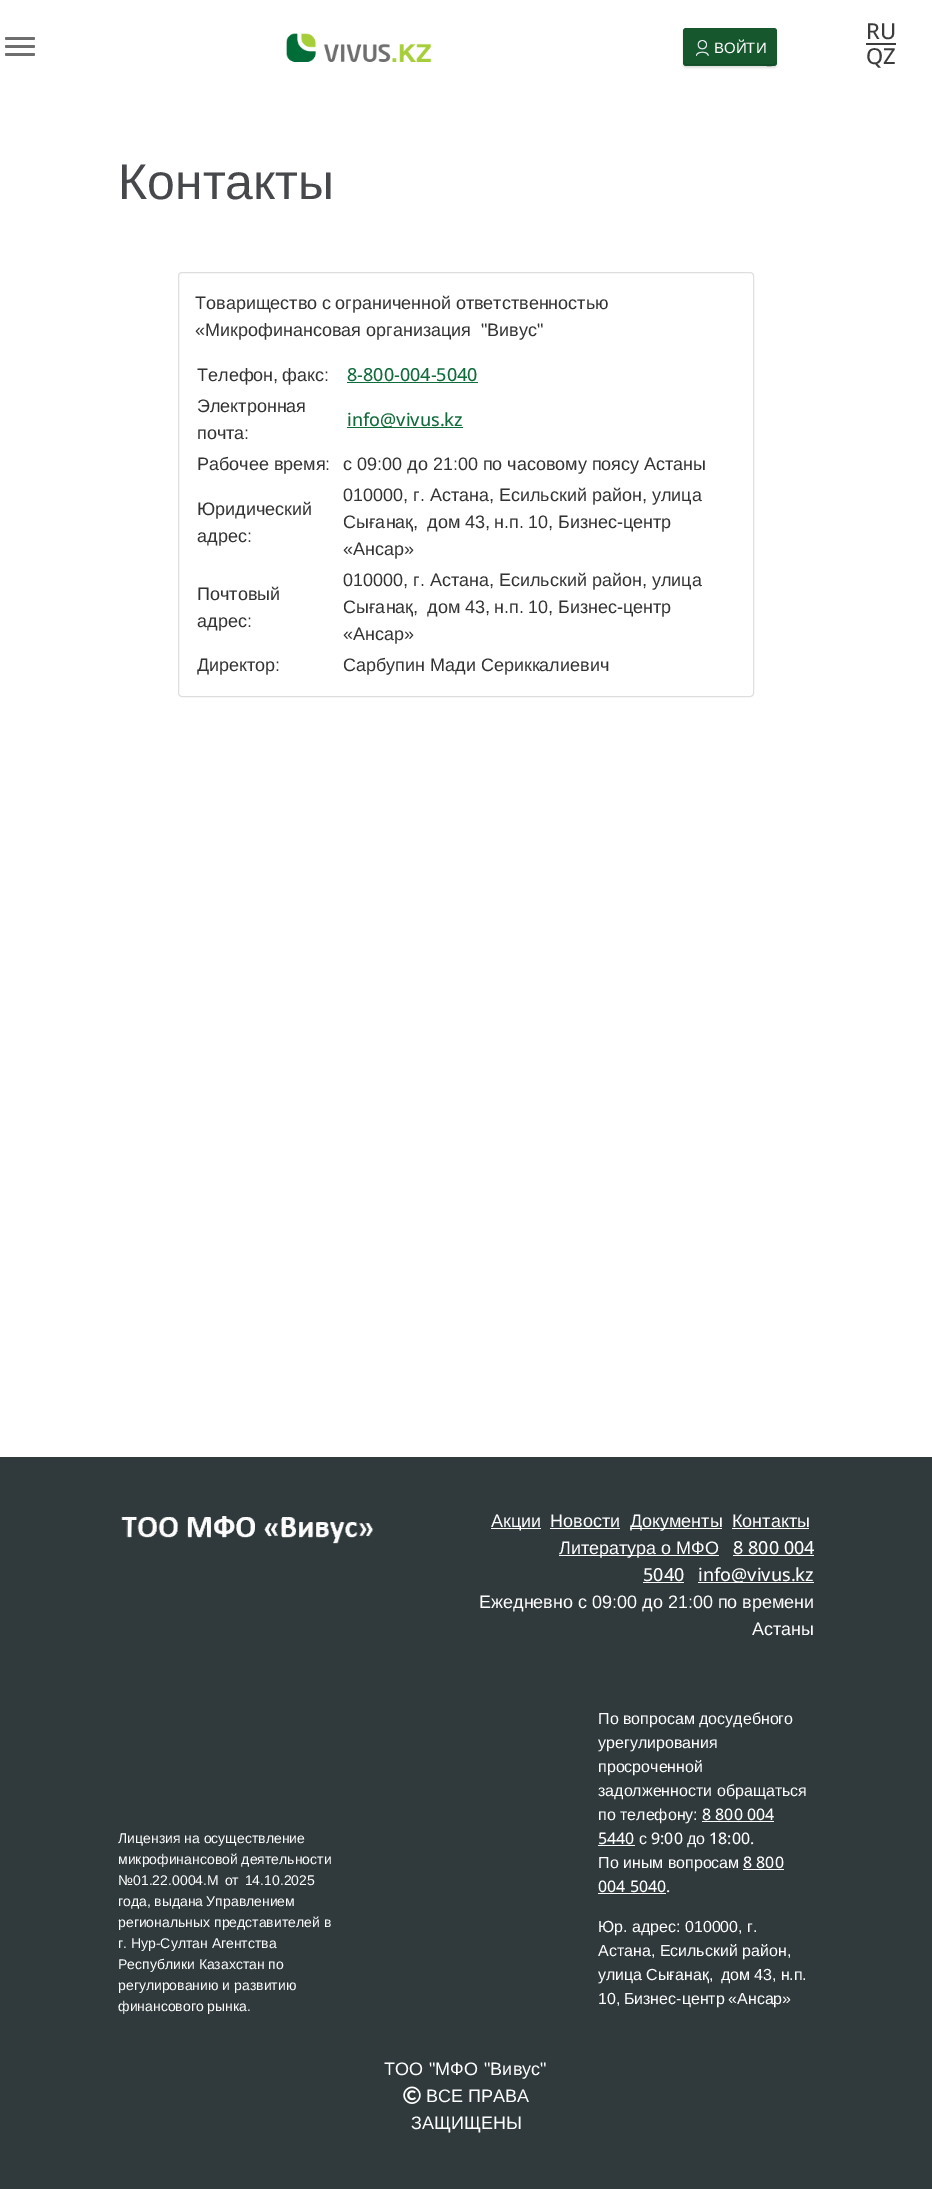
%!PS
<< /PageSize [932 2189] /PageUsesTransparency true >> setpagedevice
/rgb { 3 { 255 div 3 1 roll } repeat setrgbcolor } def
/font { [ exch dup neg 0 0 3 -1 roll 0 0 ] selectfont } def
/text { moveto show } def
/alpha { dup .setfillconstantalpha .setstrokeconstantalpha } def
/roundrect { 5 dict begin { /r /h /w /y /x } { exch def } forall
  x r add y moveto x w add y 2 copy h add r arct x w add y h add x 1 index r arct
  x y h add x y r arct x y 2 copy exch w add exch r arct closepath end } def
/shadow { 12 dict begin { /a /b /q /h /w /y /x } { exch def } forall gsave /was 0 def
  9 -2 -9 { dup b mul 4 div /e exch def 1 sub .425 mul 2.718 exch exp 1 add a .99 .min exch div /now exch def
    1 1 now sub 1 was sub div sub alpha /was now def
    w h .min e 2 mul add 0 gt { x e sub y e sub w e 2 mul add h e 2 mul add
      q e add b .6 mul add w h .min 2 div e add .min 0 .max roundrect fill } if } for grestore end } def
/picture { 5 dict begin { /h /w /y /x /name } { exch def } forall
  gsave x y translate w h scale
  w h 8 [w 0 0 h 0 0] name (r) file false 3 colorimage grestore end } def
0 .pushpdf14devicefilter
0 2189 translate 1 -1 scale
4 setmiterlimit
255 255 255 rgb
0 0 932 2189 rectfill
110 110 110 rgb
5 37 30 3 1.5 roundrect fill
5 45 30 3 1.5 roundrect fill
5 53 30 3 1.5 roundrect fill
(img_01.rgb) 286 33 146 29 picture
0 0 0 rgb
683 30 94 38 3 1 0.12 shadow
23 87 46 rgb
683 28 94 38 3 roundrect fill
20 77 41 rgb
684 62 moveto 0 1 0 3 2 3 rcurveto 73 0 rlineto 3 0 17 4 17 -3 rcurveto 0 1 rlineto -2 1 rlineto -88 0 rlineto -1 0 -2 -1 -2 -2 rcurveto closepath fill
(img_02.rgb) 696 40 13 16 picture
60 60 60 rgb
866 43 30 2 rectfill
223 223 223 rgb
178.5 272.5 575 424 3.5 roundrect stroke
16 108 58 rgb
347 382 131 1 rectfill
347 427 116 1 rectfill
48 58 61 rgb
0 1457 932 732 rectfill
(img_03.rgb) 121 1516 253 28 picture
255 255 255 rgb
491 1528 50 1 rectfill
550 1528 70 1 rectfill
630 1528 92 1 rectfill
732 1528 77 1 rectfill
559 1555 160 1 rectfill
733 1555 81 1 rectfill
643 1582 41 1 rectfill
698 1582 116 1 rectfill
702 1821 72 1 rectfill
598 1845 37 1 rectfill
743 1869 41 1 rectfill
598 1893 68 1 rectfill
(img_04.rgb) 403 2086 18 18 picture
/LiberationSans-Regular 15 font
(ВОЙТИ) 714 53 text
/OpenSans-Medium 22 font
60 60 60 rgb
(RU) 866 39 text
(QZ) 866 64 text
/LiberationSans-Regular 50 font
70 72 75 rgb
(Контакты) 118 199 text
/LiberationSans-Regular 18 font
51 51 51 rgb
195 309 moveto -0.5 0 32 (Товарищество с ограниченной ответственностью) widthshow
(«Микрофинансовая организация  "Вивус") 195 336 text
197 381 moveto -1 0 32 (Телефон, факс:) widthshow
/OpenSans-Medium 18 font
16 108 58 rgb
(8-800-004-5040) 347 381 text
/LiberationSans-Regular 18 font
51 51 51 rgb
(Электронная) 197 412 text
(почта:) 197 439 text
/OpenSans-Medium 18 font
16 108 58 rgb
(info@vivus.kz) 347 426 text
/LiberationSans-Regular 18 font
51 51 51 rgb
(Рабочее время:) 197 470 text
(с 09:00 до 21:00 по часовому поясу Астаны) 343 470 text
(Юридический) 197 515 text
(адрес:) 197 542 text
(010000, г. Астана, Есильский район, улица) 343 501 text
343 528 moveto -0.5 0 32 (Сығанақ,  дом 43, н.п. 10, Бизнес-центр) widthshow
(«Ансар») 343 555 text
(Почтовый) 197 600 text
(адрес:) 197 627 text
(010000, г. Астана, Есильский район, улица) 343 586 text
343 613 moveto -0.5 0 32 (Сығанақ,  дом 43, н.п. 10, Бизнес-центр) widthshow
(«Ансар») 343 640 text
(Директор:) 197 671 text
(Сарбупин Мади Сериккалиевич) 343 671 text
255 255 255 rgb
(Акции) 491 1527 text
(Новости) 550 1527 text
(Документы) 630 1527 text
(Контакты) 732 1527 text
(Литература о МФО) 559 1554 text
/OpenSans-Medium 18 font
(8 800 004) 733 1554 text
(5040) 643 1581 text
(info@vivus.kz) 698 1581 text
/LiberationSans-Regular 18 font
(Ежедневно с 09:00 до 21:00 по времени) 479 1608 text
(Астаны) 752 1635 text
/LiberationSans-Regular 14 font
(Лицензия на осуществление) 118 1843 text
(микрофинансовой деятельности) 118 1864 text
118 1885 moveto 2 0 32 (№01.22.0004.M от 14.10.2025) widthshow
118 1906 moveto -0.5 0 32 (года, выдана Управлением) widthshow
(региональных представителей в) 118 1927 text
(г. Нур-Султан Агентства) 118 1948 text
(Республики Казахстан по) 118 1969 text
(регулированию и развитию) 118 1990 text
(финансового рынка.) 118 2011 text
/LiberationSans-Regular 16 font
(По вопросам досудебного) 598 1724 text
(урегулирования) 598 1748 text
(просроченной) 598 1772 text
(задолженности обращаться) 598 1796 text
(по телефону:) 598 1820 text
/OpenSans-Medium 16 font
(8 800 004) 702 1820 text
(5440) 598 1844 text
/LiberationSans-Regular 16 font
(с) 639 1844 text
/OpenSans-Medium 16 font
(9:00) 651 1844 text
/LiberationSans-Regular 16 font
(до) 687 1844 text
/OpenSans-Medium 16 font
(18:00.) 709 1844 text
/LiberationSans-Regular 16 font
(По иным вопросам) 598 1868 text
/OpenSans-Medium 16 font
(8 800) 743 1868 text
(004 5040.) 598 1892 text
/LiberationSans-Regular 16 font
(Юр. адрес: 010000, г.) 598 1932 text
(Астана, Есильский район,) 598 1956 text
598 1980 moveto -0.5 0 32 (улица Сығанақ,  дом 43, н.п.) widthshow
598 2004 moveto -1 0 32 (10, Бизнес-центр «Ансар») widthshow
/LiberationSans-Regular 18 font
384 2075 moveto 1 0 32 (ТОО "МФО "Вивус") widthshow
(ВСЕ ПРАВА) 426 2102 text
(ЗАЩИЩЕНЫ) 411 2129 text
.poppdf14devicefilter showpage
